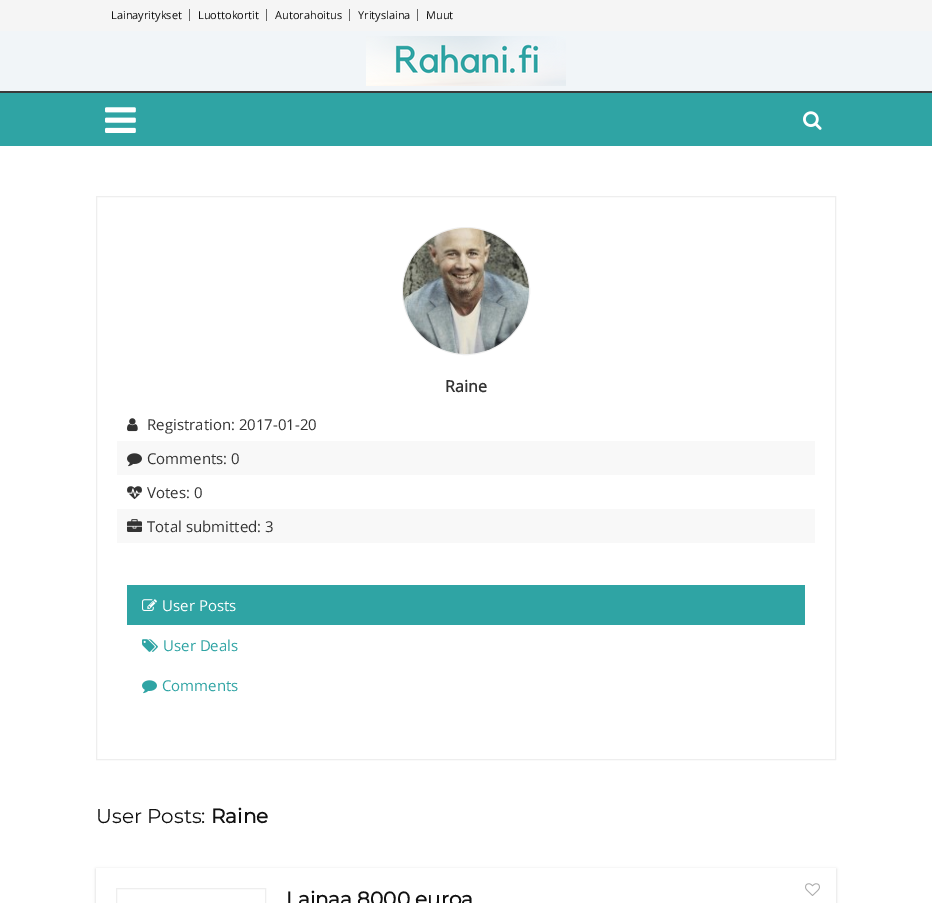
%!PS
<< /PageSize [932 903] /PageUsesTransparency true >> setpagedevice
/rgb { 3 { 255 div 3 1 roll } repeat setrgbcolor } def
/font { [ exch dup neg 0 0 3 -1 roll 0 0 ] selectfont } def
/text { moveto show } def
/alpha { dup .setfillconstantalpha .setstrokeconstantalpha } def
/circle { newpath 0 360 arc closepath } def
/roundrect { 5 dict begin { /r /h /w /y /x } { exch def } forall
  x r add y moveto x w add y 2 copy h add r arct x w add y h add x 1 index r arct
  x y h add x y r arct x y 2 copy exch w add exch r arct closepath end } def
/shadow { 12 dict begin { /a /b /q /h /w /y /x } { exch def } forall gsave /was 0 def
  9 -2 -9 { dup b mul 4 div /e exch def 1 sub .425 mul 2.718 exch exp 1 add a .99 .min exch div /now exch def
    1 1 now sub 1 was sub div sub alpha /was now def
    w h .min e 2 mul add 0 gt { x e sub y e sub w e 2 mul add h e 2 mul add
      q e add b .6 mul add w h .min 2 div e add .min 0 .max roundrect fill } if } for grestore end } def
/picture { 5 dict begin { /h /w /y /x /name } { exch def } forall
  gsave x y translate w h scale
  w h 8 [w 0 0 h 0 0] name (r) file false 3 colorimage grestore end } def
0 .pushpdf14devicefilter
0 903 translate 1 -1 scale
4 setmiterlimit
255 255 255 rgb
0 0 932 903 rectfill
241 245 248 rgb
0 31 932 60 rectfill
245 245 245 rgb
0 0 932 31 rectfill
102 102 102 rgb
189 9 1 12 rectfill
266 9 1 12 rectfill
349 9 1 12 rectfill
417 9 1 12 rectfill
(img_01.rgb) 366 36 200 50 picture
47 164 164 rgb
0 93 932 53 rectfill
58 58 58 rgb
0 91 932 2 rectfill
(img_02.rgb) 105 107 31 26 picture
(img_03.rgb) 803 111 19 19 picture
238 238 238 rgb
96.5 196.5 739 563 rectstroke
466 291 63.5 circle stroke
(img_04.rgb) 403 228 126 126 picture
(img_05.rgb) 127 418 11 14 picture
248 248 248 rgb
117 441 698 34 rectfill
(img_06.rgb) 127 453 15 14 picture
(img_07.rgb) 127 486 15 13 picture
117 509 698 34 rectfill
(img_08.rgb) 127 519 15 13 picture
47 164 164 rgb
127 585 678 40 rectfill
(img_09.rgb) 142 599 15 12 picture
(img_10.rgb) 142 639 16 13 picture
(img_11.rgb) 142 680 15 14 picture
gsave
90 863 moveto 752 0 rlineto 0 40 rlineto -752 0 rlineto closepath 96 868 moveto 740 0 rlineto 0 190 rlineto -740 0 rlineto closepath eoclip newpath
0 0 0 rgb
96 869 740 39 0 1.5 0.16 shadow
grestore
238 238 238 rgb
116.5 888.5 149 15 rectstroke
(img_12.rgb) 805 883 15 13 picture
/OpenSans-Regular 11 font
17 17 17 rgb
(Lainayritykset) 111 19 text
(Luottokortit) 198 19 text
(Autorahoitus) 275 19 text
(Yrityslaina) 358 19 text
(Muut) 426 19 text
/OpenSans-Bold 16 font
51 51 51 rgb
(Raine) 445 392 text
/OpenSans-Regular 15 font
(Registration: 2017-01-20) 147 430 text
(Comments: 0) 147 464 text
(Votes: 0) 147 498 text
(Total submitted: 3) 147 532 text
255 255 255 rgb
(User Posts) 162 611 text
47 164 164 rgb
(User Deals) 163 651 text
(Comments) 162 691 text
/Montserrat-Thin 20 font
17 17 17 rgb
(User Posts:) 96 823 text
/Montserrat-Bold 20 font
(Raine) 211 823 text
(Lainaa 8000 euroa) 286 906 text
.poppdf14devicefilter showpage
